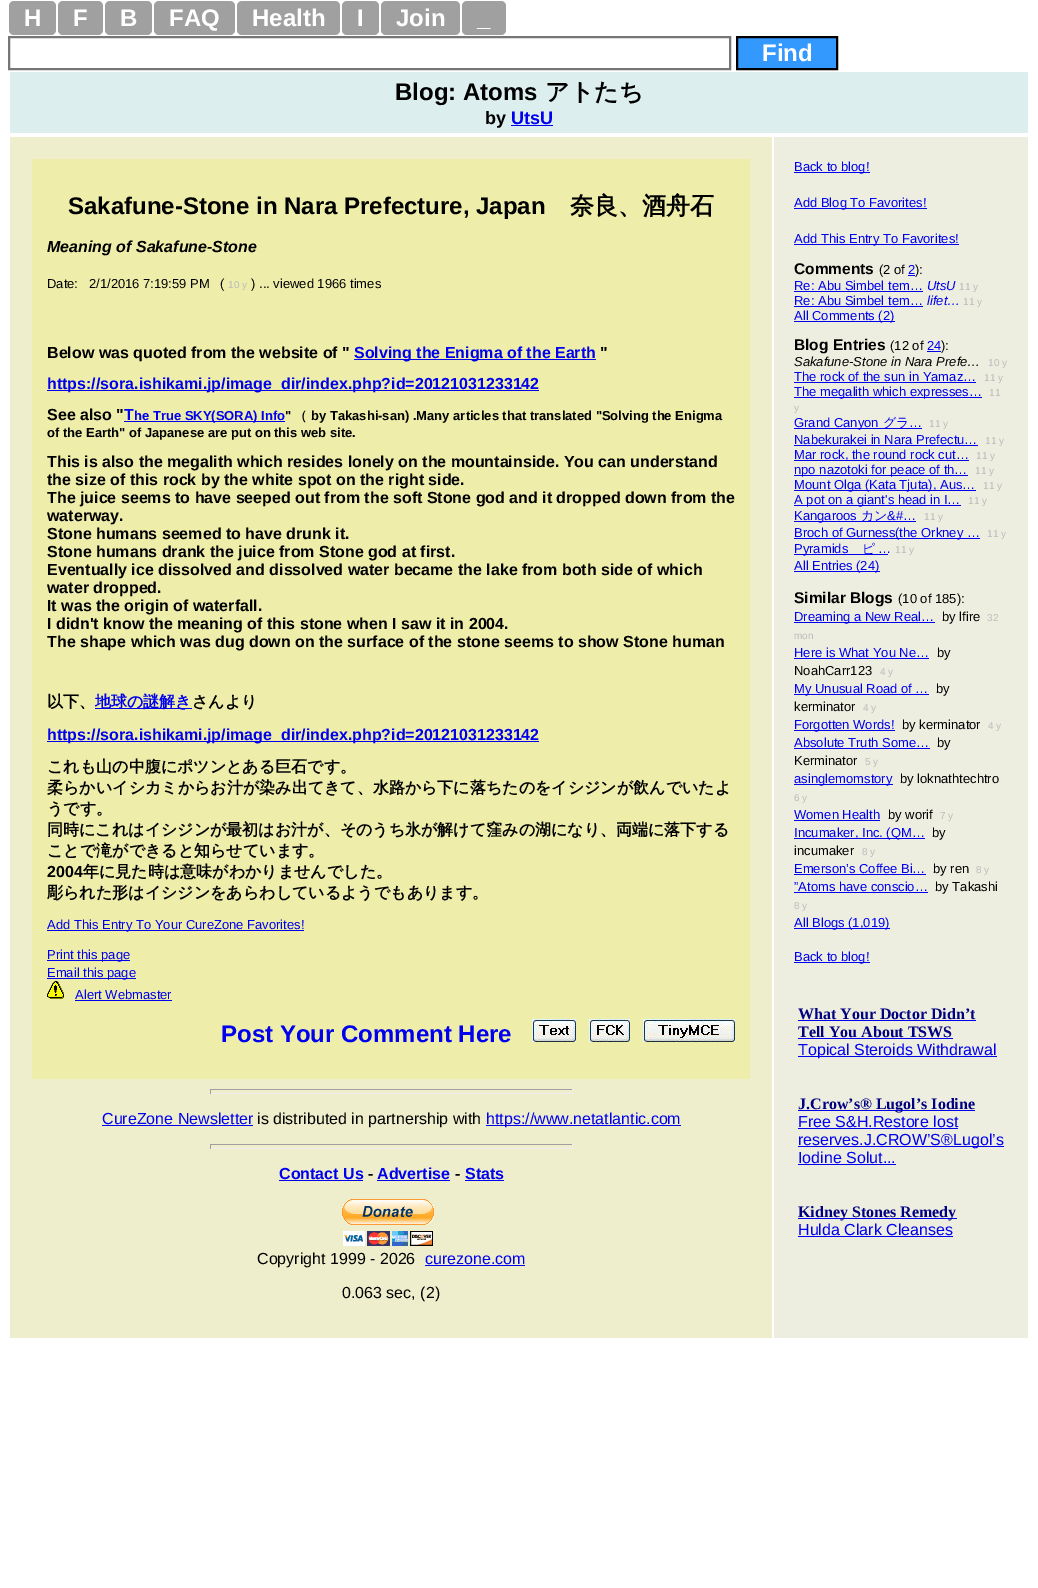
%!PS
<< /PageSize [1038 1588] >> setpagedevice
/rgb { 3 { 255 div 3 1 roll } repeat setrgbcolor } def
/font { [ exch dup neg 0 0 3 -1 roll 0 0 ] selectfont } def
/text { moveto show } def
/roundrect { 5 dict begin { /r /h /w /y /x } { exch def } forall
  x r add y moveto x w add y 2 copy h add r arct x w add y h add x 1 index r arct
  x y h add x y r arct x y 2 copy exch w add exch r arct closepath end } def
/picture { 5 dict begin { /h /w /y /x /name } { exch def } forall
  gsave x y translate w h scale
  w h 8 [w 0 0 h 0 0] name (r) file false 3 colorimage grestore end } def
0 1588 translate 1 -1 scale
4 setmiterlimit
255 255 255 rgb
0 0 1038 1588 rectfill
160 160 160 rgb
9 1 47 34 5 roundrect fill
58 1 45 34 5 roundrect fill
105 1 47 34 5 roundrect fill
154 1 81 34 5 roundrect fill
237 1 103 34 5 roundrect fill
342 1 37 34 5 roundrect fill
381 1 79 34 5 roundrect fill
462 1 44 34 5 roundrect fill
118 118 118 rgb
2 setlinewidth
9 37 721 32 rectstroke
51 153 255 rgb
737 37 moveto 100 0 rlineto 0 32 rlineto -100 0 rlineto closepath gsave fill grestore
0 0 0 rgb
stroke
221 238 238 rgb
10 72 1018 61 rectfill
0 0 238 rgb
511 125 42 1 rectfill
238 238 204 rgb
10 137 762 1201 rectfill
238 238 170 rgb
32 159 718 920 rectfill
0 0 238 rgb
354 359 242 1 rectfill
47 390 492 1 rectfill
124 421 161 1 rectfill
95 708 97 1 rectfill
47 741 492 1 rectfill
47 930 257 1 rectfill
47 960 83 1 rectfill
47 978 89 1 rectfill
(img_01.rgb) 47 981 17 18 picture
75 1000 97 1 rectfill
(img_02.rgb) 532 1019 44 23 picture
(img_03.rgb) 589 1019 41 23 picture
(img_04.rgb) 643 1019 92 23 picture
159 159 159 rgb
210 1089 363 1 rectfill
238 238 238 rgb
572 1089 1 5 rectfill
210 1093 363 1 rectfill
159 159 159 rgb
210 1089 1 5 rectfill
0 0 238 rgb
102 1125 151 1 rectfill
486 1125 195 1 rectfill
159 159 159 rgb
210 1144 363 1 rectfill
238 238 238 rgb
572 1144 1 5 rectfill
210 1148 363 1 rectfill
159 159 159 rgb
210 1144 1 5 rectfill
0 0 238 rgb
279 1180 84 1 rectfill
377 1180 73 1 rectfill
465 1180 39 1 rectfill
(img_05.rgb) 342 1199 92 47 picture
425 1265 100 1 rectfill
238 238 224 rgb
774 137 254 1201 rectfill
0 0 238 rgb
794 172 76 1 rectfill
794 208 133 1 rectfill
794 244 165 1 rectfill
908 275 7 1 rectfill
794 291 129 1 rectfill
794 306 129 1 rectfill
794 321 101 1 rectfill
927 351 14 1 rectfill
794 382 182 1 rectfill
794 397 188 1 rectfill
794 428 128 1 rectfill
794 445 184 1 rectfill
794 460 175 1 rectfill
794 475 174 1 rectfill
794 490 182 1 rectfill
794 505 167 1 rectfill
794 521 122 1 rectfill
794 538 186 1 rectfill
794 554 94 1 rectfill
794 571 86 1 rectfill
794 622 141 1 rectfill
794 658 135 1 rectfill
794 694 135 1 rectfill
794 730 101 1 rectfill
794 748 136 1 rectfill
794 784 99 1 rectfill
794 820 86 1 rectfill
794 838 131 1 rectfill
794 874 132 1 rectfill
794 892 134 1 rectfill
794 928 96 1 rectfill
794 962 76 1 rectfill
798 1020 178 1 rectfill
798 1038 155 1 rectfill
798 1056 199 1 rectfill
798 1110 177 1 rectfill
798 1128 160 1 rectfill
798 1146 206 1 rectfill
798 1164 98 1 rectfill
798 1218 159 1 rectfill
798 1236 155 1 rectfill
/LiberationSans-Bold 24 font
255 255 255 rgb
(H) 24 26 text
(F) 73 26 text
(B) 120 26 text
(FAQ) 169 26 text
(Health) 252 26 text
(I) 357 26 text
(Join) 396 26 text
(_) 477 26 text
(Find) 762 61 text
0 0 0 rgb
(Blog: Atoms) 395 100 text
/WenQuanYiZenHei-Bold 24 font
(アトたち) 545 100 text
/LiberationSans-Bold 18 font
(by) 485 124 text
0 0 238 rgb
(UtsU) 511 124 text
/LiberationSans-Bold 24 font
0 0 0 rgb
(Sakafune-Stone in Nara Prefecture, Japan) 68 214 text
/WenQuanYiZenHei-Bold 24 font
(奈良、酒舟石) 570 214 text
/LiberationSans-BoldItalic 16 font
(Meaning of Sakafune-Stone) 47 252 text
/LiberationSans-Regular 13 font
(Date:   2/1/2016 7:19:59 PM   \() 47 288 text
/LiberationSans-Regular 10 font
187 187 187 rgb
(10 y) 228 288 text
/LiberationSans-Regular 13 font
0 0 0 rgb
(\) ... viewed 1966 times) 251 288 text
/LiberationSans-Bold 16 font
(Below was quoted from the website of ") 47 358 text
0 0 238 rgb
(Solving the Enigma of the Earth) 354 358 text
0 0 0 rgb
(") 600 358 text
0 0 238 rgb
(https://sora.ishikami.jp/image_dir/index.php?id=20121031233142) 47 389 text
0 0 0 rgb
(See also ") 47 420 text
0 0 238 rgb
(T) 124 420 text
/LiberationSans-Bold 13 font
(he True SKY\(SORA\) Info) 134 420 text
0 0 0 rgb
(") 285 420 text
/WenQuanYiZenHei-Bold 13 font
(（) 294 420 text
/LiberationSans-Bold 13 font
(by Takashi-san\) .Many articles that translated "Solving the Enigma) 311 420 text
(of the Earth" of Japanese are put on this web site.) 47 437 text
/LiberationSans-Bold 16 font
(This is also the megalith which resides lonely on the mountainside. You can understand) 47 467 text
(the size of this rock by the white spot on the right side.) 47 485 text
(The juice seems to have seeped out from the soft Stone god and it dropped down from the) 47 503 text
(waterway.) 47 521 text
(Stone humans seemed to have drunk it.) 47 539 text
(Stone humans drank the juice from Stone god at first.) 47 557 text
(Eventually ice dissolved and dissolved water became the lake from both side of which) 47 575 text
(water dropped.) 47 593 text
(It was the origin of waterfall.) 47 611 text
(I didn't know the meaning of this stone when I saw it in 2004.) 47 629 text
(The shape which was dug down on the surface of the stone seems to show Stone human) 47 647 text
/WenQuanYiZenHei-Bold 16 font
(以下、) 47 707 text
0 0 238 rgb
(地球の謎解き) 95 707 text
0 0 0 rgb
(さんより) 192 707 text
/LiberationSans-Bold 16 font
0 0 238 rgb
(https://sora.ishikami.jp/image_dir/index.php?id=20121031233142) 47 740 text
/WenQuanYiZenHei-Bold 16 font
0 0 0 rgb
(これも山の中腹にポツンとある巨石です。) 47 772 text
(柔らかいイシカミからお汁が染み出てきて、水路から下に落ちたのをイシジンが飲んでいたよ) 47 793 text
(うです。) 47 814 text
(同時にこれはイシジンが最初はお汁が、そのうち氷が解けて窪みの湖になり、両端に落下する) 47 835 text
(ことで滝ができると知らせています。) 47 856 text
/LiberationSans-Bold 16 font
(2004) 47 877 text
/WenQuanYiZenHei-Bold 16 font
(年に見た時は意味がわかりませんでした。) 83 877 text
(彫られた形はイシジンをあらわしているようでもあります。) 47 898 text
/LiberationSans-Regular 13 font
0 0 238 rgb
(Add This Entry To Your CureZone Favorites!) 47 929 text
(Print this page) 47 959 text
(Email this page) 47 977 text
(Alert Webmaster) 75 999 text
/LiberationSans-Bold 24 font
(Post Your Comment Here) 221 1042 text
/LiberationSans-Regular 16 font
(CureZone Newsletter) 102 1124 text
0 0 0 rgb
(is distributed in partnership with) 257 1124 text
0 0 238 rgb
(https://www.netatlantic.com) 486 1124 text
/LiberationSans-Bold 16 font
(Contact Us) 279 1179 text
0 0 0 rgb
(-) 368 1179 text
0 0 238 rgb
(Advertise) 377 1179 text
0 0 0 rgb
(-) 455 1179 text
0 0 238 rgb
(Stats) 465 1179 text
/LiberationSans-Regular 16 font
0 0 0 rgb
(Copyright 1999 - 2026) 257 1264 text
0 0 238 rgb
(curezone.com) 425 1264 text
0 0 0 rgb
(0.063 sec, \(2\)) 342 1298 text
/LiberationSans-Regular 13 font
0 0 238 rgb
(Back to blog!) 794 171 text
(Add Blog To Favorites!) 794 207 text
(Add This Entry To Favorites!) 794 243 text
/LiberationSans-Bold 15.5 font
0 0 0 rgb
(Comments) 794 274 text
/LiberationSans-Regular 13 font
(\(2 of) 879 274 text
0 0 238 rgb
(2) 908 274 text
0 0 0 rgb
(\):) 915 274 text
0 0 238 rgb
(Re: Abu Simbel tem…) 794 290 text
/LiberationSans-Italic 13 font
(UtsU) 927 290 text
/LiberationSans-Regular 10 font
187 187 187 rgb
(11 y) 959 290 text
/LiberationSans-Regular 13 font
0 0 238 rgb
(Re: Abu Simbel tem…) 794 305 text
/LiberationSans-Italic 13 font
(lifet…) 927 305 text
/LiberationSans-Regular 10 font
187 187 187 rgb
(11 y) 963 305 text
/LiberationSans-Regular 13 font
0 0 238 rgb
(All Comments \(2\)) 794 320 text
/LiberationSans-Bold 15.5 font
0 0 0 rgb
(Blog Entries) 794 350 text
/LiberationSans-Regular 13 font
(\(12 of) 890 350 text
0 0 238 rgb
(24) 927 350 text
0 0 0 rgb
(\):) 941 350 text
/LiberationSans-Italic 13 font
(Sakafune-Stone in Nara Prefe…) 794 366 text
/LiberationSans-Regular 10 font
187 187 187 rgb
(10 y) 988 366 text
/LiberationSans-Regular 13 font
0 0 238 rgb
(The rock of the sun in Yamaz…) 794 381 text
/LiberationSans-Regular 10 font
187 187 187 rgb
(11 y) 984 381 text
/LiberationSans-Regular 13 font
0 0 238 rgb
(The megalith which expresses…) 794 396 text
/LiberationSans-Regular 10 font
187 187 187 rgb
(11) 989 396 text
(y) 794 411 text
/LiberationSans-Regular 13 font
0 0 238 rgb
(Grand Canyon) 794 427 text
/WenQuanYiZenHei-Medium 13 font
(グラ) 883 427 text
/LiberationSans-Regular 13 font
(…) 909 427 text
/LiberationSans-Regular 10 font
187 187 187 rgb
(11 y) 929 427 text
/LiberationSans-Regular 13 font
0 0 238 rgb
(Nabekurakei in Nara Prefectu…) 794 444 text
/LiberationSans-Regular 10 font
187 187 187 rgb
(11 y) 985 444 text
/LiberationSans-Regular 13 font
0 0 238 rgb
(Mar rock, the round rock cut…) 794 459 text
/LiberationSans-Regular 10 font
187 187 187 rgb
(11 y) 976 459 text
/LiberationSans-Regular 13 font
0 0 238 rgb
(npo nazotoki for peace of th…) 794 474 text
/LiberationSans-Regular 10 font
187 187 187 rgb
(11 y) 975 474 text
/LiberationSans-Regular 13 font
0 0 238 rgb
(Mount Olga \(Kata Tjuta\), Aus…) 794 489 text
/LiberationSans-Regular 10 font
187 187 187 rgb
(11 y) 983 489 text
/LiberationSans-Regular 13 font
0 0 238 rgb
(A pot on a giant's head in I…) 794 504 text
/LiberationSans-Regular 10 font
187 187 187 rgb
(11 y) 968 504 text
/LiberationSans-Regular 13 font
0 0 238 rgb
(Kangaroos) 794 520 text
/WenQuanYiZenHei-Medium 13 font
(カン) 861 520 text
/LiberationSans-Regular 13 font
(&#…) 887 520 text
/LiberationSans-Regular 10 font
187 187 187 rgb
(11 y) 924 520 text
/LiberationSans-Regular 13 font
0 0 238 rgb
(Broch of Gurness\(the Orkney …) 794 537 text
/LiberationSans-Regular 10 font
187 187 187 rgb
(11 y) 987 537 text
/LiberationSans-Regular 13 font
0 0 238 rgb
(Pyramids) 794 553 text
/WenQuanYiZenHei-Medium 13 font
(ピ) 862 553 text
/LiberationSans-Regular 13 font
(…) 878 553 text
/LiberationSans-Regular 10 font
187 187 187 rgb
(11 y) 895 553 text
/LiberationSans-Regular 13 font
0 0 238 rgb
(All Entries \(24\)) 794 570 text
/LiberationSans-Bold 15.5 font
0 0 0 rgb
(Similar Blogs) 794 603 text
/LiberationSans-Regular 13 font
(\(10 of 185\):) 898 603 text
0 0 238 rgb
(Dreaming a New Real…) 794 621 text
0 0 0 rgb
(by lfire) 942 621 text
/LiberationSans-Regular 10 font
187 187 187 rgb
(32) 987 621 text
(mon) 794 639 text
/LiberationSans-Regular 13 font
0 0 238 rgb
(Here is What You Ne…) 794 657 text
0 0 0 rgb
(by) 937 657 text
(NoahCarr123) 794 675 text
/LiberationSans-Regular 10 font
187 187 187 rgb
(4 y) 880 675 text
/LiberationSans-Regular 13 font
0 0 238 rgb
(My Unusual Road of …) 794 693 text
0 0 0 rgb
(by) 936 693 text
(kerminator) 794 711 text
/LiberationSans-Regular 10 font
187 187 187 rgb
(4 y) 863 711 text
/LiberationSans-Regular 13 font
0 0 238 rgb
(Forgotten Words!) 794 729 text
0 0 0 rgb
(by kerminator) 902 729 text
/LiberationSans-Regular 10 font
187 187 187 rgb
(4 y) 988 729 text
/LiberationSans-Regular 13 font
0 0 238 rgb
(Absolute Truth Some…) 794 747 text
0 0 0 rgb
(by) 937 747 text
(Kerminator) 794 765 text
/LiberationSans-Regular 10 font
187 187 187 rgb
(5 y) 865 765 text
/LiberationSans-Regular 13 font
0 0 238 rgb
(asinglemomstory) 794 783 text
0 0 0 rgb
(by loknathtechtro) 900 783 text
/LiberationSans-Regular 10 font
187 187 187 rgb
(6 y) 794 801 text
/LiberationSans-Regular 13 font
0 0 238 rgb
(Women Health) 794 819 text
0 0 0 rgb
(by worif) 888 819 text
/LiberationSans-Regular 10 font
187 187 187 rgb
(7 y) 940 819 text
/LiberationSans-Regular 13 font
0 0 238 rgb
(Incumaker, Inc. \(QM…) 794 837 text
0 0 0 rgb
(by) 932 837 text
(incumaker) 794 855 text
/LiberationSans-Regular 10 font
187 187 187 rgb
(8 y) 862 855 text
/LiberationSans-Regular 13 font
0 0 238 rgb
(Emerson’s Coffee Bi…) 794 873 text
0 0 0 rgb
(by ren) 933 873 text
/LiberationSans-Regular 10 font
187 187 187 rgb
(8 y) 976 873 text
/LiberationSans-Regular 13 font
0 0 238 rgb
(”Atoms have conscio…) 794 891 text
0 0 0 rgb
(by Takashi) 935 891 text
/LiberationSans-Regular 10 font
187 187 187 rgb
(8 y) 794 909 text
/LiberationSans-Regular 13 font
0 0 238 rgb
(All Blogs \(1,019\)) 794 927 text
(Back to blog!) 794 961 text
/LiberationSerif-Bold 16 font
0 0 128 rgb
(What Your Doctor Didn’t) 798 1019 text
(Tell You About TSWS) 798 1037 text
/LiberationSans-Regular 16 font
0 0 238 rgb
(Topical Steroids Withdrawal) 798 1055 text
/LiberationSerif-Bold 16 font
0 0 128 rgb
(J.Crow’s® Lugol’s Iodine) 798 1109 text
/LiberationSans-Regular 16 font
0 0 238 rgb
(Free S&H.Restore lost) 798 1127 text
(reserves.J.CROW’S®Lugol’s) 798 1145 text
(Iodine Solut...) 798 1163 text
/LiberationSerif-Bold 16 font
0 0 128 rgb
(Kidney Stones Remedy) 798 1217 text
/LiberationSans-Regular 16 font
0 0 238 rgb
(Hulda Clark Cleanses) 798 1235 text
showpage
